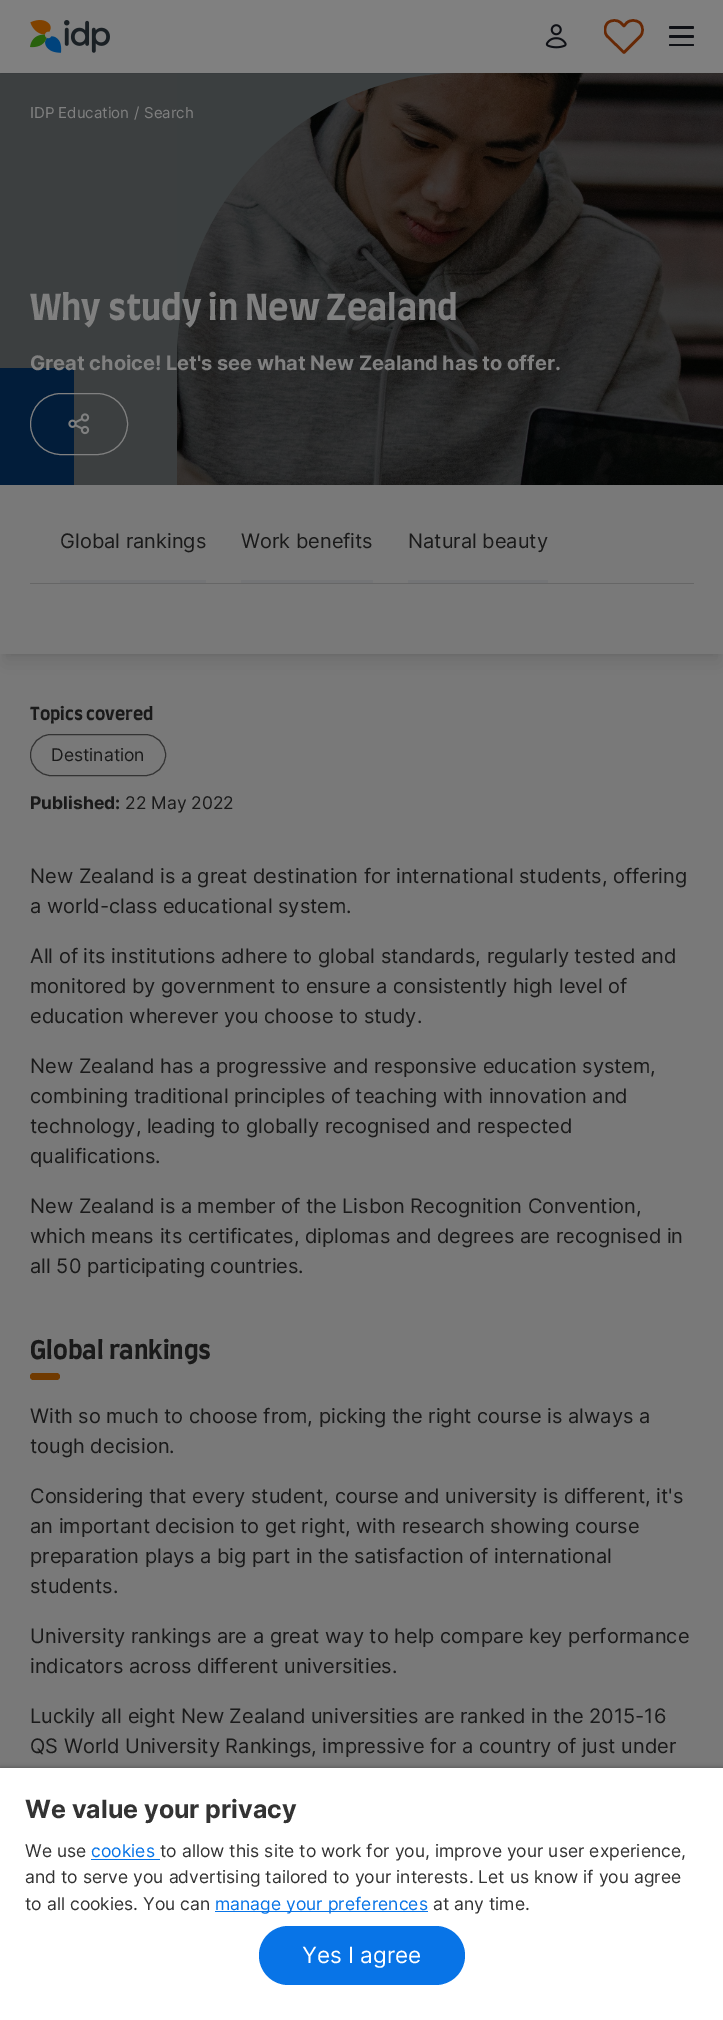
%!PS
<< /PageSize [723 2020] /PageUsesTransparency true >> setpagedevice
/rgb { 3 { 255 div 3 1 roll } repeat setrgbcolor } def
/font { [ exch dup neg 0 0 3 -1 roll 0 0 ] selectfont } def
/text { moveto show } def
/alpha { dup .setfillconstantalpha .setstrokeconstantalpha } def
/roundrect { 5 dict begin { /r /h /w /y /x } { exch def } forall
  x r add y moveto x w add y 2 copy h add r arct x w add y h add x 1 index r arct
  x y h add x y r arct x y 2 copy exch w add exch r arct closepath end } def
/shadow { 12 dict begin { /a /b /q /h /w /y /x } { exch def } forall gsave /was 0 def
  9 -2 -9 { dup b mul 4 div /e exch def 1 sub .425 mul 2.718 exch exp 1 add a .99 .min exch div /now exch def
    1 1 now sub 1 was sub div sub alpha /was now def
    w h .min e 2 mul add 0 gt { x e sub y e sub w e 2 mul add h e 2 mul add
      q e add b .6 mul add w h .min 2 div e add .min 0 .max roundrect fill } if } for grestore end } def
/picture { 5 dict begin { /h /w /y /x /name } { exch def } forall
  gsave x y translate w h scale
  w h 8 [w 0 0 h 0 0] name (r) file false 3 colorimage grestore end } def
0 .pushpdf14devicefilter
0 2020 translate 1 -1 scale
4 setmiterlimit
121 121 121 rgb
0 0 723 2020 rectfill
60 63 64 rgb
0 73 448 412 rectfill
(img_03.rgb) 177 73 546 412 picture
8 12 20 rgb
1 3 722 70 0 1 0.1 shadow
0 0 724 73 0 2 0.1 shadow
128 128 128 rgb
0 0 723 73 rectfill
(img_01.rgb) 30 20 80 33 picture
(img_02.rgb) 545 24 22 25 picture
gsave
604 19 40 35 rectclip
102 40 5 rgb
2.5 setlinewidth
1 setlinecap
1 setlinejoin
607.5 23 moveto -3.5 4 -3.5 10 0 13.5 rcurveto 16.5 16 rlineto 16 -16 rlineto 3.5 -3.5 3.5 -9.5 0 -13.5 rcurveto -4 -3.5 -10 -3.5 -13.5 0 rcurveto -2.5 3 rlineto -3 -3 rlineto -3.5 -3.5 -9.5 -3.5 -13.5 0 rcurveto closepath stroke
grestore
14 16 21 rgb
669 26 25 3 1.5 roundrect fill
669 35 25 3 1.5 roundrect fill
669 44 25 2 1 roundrect fill
2 29 58 rgb
74 501 moveto 0 -133 rlineto -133 0 rlineto -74 0 -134 59 -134 133 rcurveto 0 134 rlineto 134 0 rlineto 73 0 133 -60 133 -134 rcurveto closepath fill
128 128 128 rgb
30.5 393.5 97 61 30.5 roundrect stroke
(img_04.rgb) 68 413 22 22 picture
0 0 0 rgb
5 495 714 159 0 4 0.1 shadow
4 501 716 162 0 9.5 0.1 shadow
121 121 121 rgb
0 485 723 169 rectfill
102 102 102 rgb
30 583 664 1 rectfill
115 116 118 rgb
60 580 146 3 rectfill
241 580 132 3 rectfill
408 580 140 3 rectfill
51 51 51 rgb
30.5 734.5 135 41 20.5 roundrect stroke
112 58 0 rgb
30 1373 30 7 3.5 roundrect fill
0 0 0 rgb
0 1768 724 252 0 2.5 0.35 shadow
255 255 255 rgb
0 1768 723 252 rectfill
8 116 231 rgb
91 1859 69 1 rectfill
215 1911 213 1 rectfill
259 1926 206 59 29.5 roundrect fill
/Inter-Regular 15 font
128 128 128 rgb
(IDP Education) 30 118 text
(/) 134 118 text
(Search) 144 118 text
/Farro-Bold 35 font
(Why study in New Zealand) 30 320 text
/Inter-Bold 20 font
(Great choice! Let's see what New Zealand has to offer.) 30 370 text
/Inter-Regular 20 font
26 26 26 rgb
(Global rankings) 60 548 text
(Work benefits) 241 548 text
(Natural beauty) 408 548 text
/Farro-Bold 17.5 font
(Topics covered) 30 720 text
/Inter-Regular 17.5 font
(Destination) 51 761 text
/Inter-Bold 17.5 font
(Published:) 30 809 text
/Inter-Regular 17.5 font
(22 May 2022) 125 809 text
/Inter-Regular 20 font
(New Zealand is a great destination for international students, offering) 30 883 text
(a world-class educational system.) 30 913 text
(All of its institutions adhere to global standards, regularly tested and) 30 963 text
(monitored by government to ensure a consistently high level of) 30 993 text
(education wherever you choose to study.) 30 1023 text
(New Zealand has a progressive and responsive education system,) 30 1073 text
(combining traditional principles of teaching with innovation and) 30 1103 text
(technology, leading to globally recognised and respected) 30 1133 text
(qualifications.) 30 1163 text
(New Zealand is a member of the Lisbon Recognition Convention,) 30 1213 text
(which means its certificates, diplomas and degrees are recognised in) 30 1243 text
(all 50 participating countries.) 30 1273 text
/Farro-Bold 25 font
(Global rankings) 30 1359 text
/Inter-Regular 20 font
(With so much to choose from, picking the right course is always a) 30 1423 text
(tough decision.) 30 1453 text
(Considering that every student, course and university is different, it's) 30 1503 text
(an important decision to get right, with research showing course) 30 1533 text
(preparation plays a big part in the satisfaction of international) 30 1563 text
(students.) 30 1593 text
(University rankings are a great way to help compare key performance) 30 1643 text
(indicators across different universities.) 30 1673 text
(Luckily all eight New Zealand universities are ranked in the 2015-16) 30 1723 text
(QS World University Rankings, impressive for a country of just under) 30 1753 text
/Inter-Bold 25 font
51 51 51 rgb
(We value your privacy) 25 1818 text
/Inter-Regular 17.5 font
(We use) 25 1857 text
8 116 231 rgb
(cookies) 91 1857 text
51 51 51 rgb
(to allow this site to work for you, improve your user experience,) 160 1857 text
(and to serve you advertising tailored to your interests. Let us know if you agree) 25 1883 text
(to all cookies. You can) 25 1910 text
8 116 231 rgb
(manage your preferences) 215 1910 text
51 51 51 rgb
(at any time.) 433 1910 text
/Inter-Regular 22.5 font
255 255 255 rgb
(Yes I agree) 302 1963 text
.poppdf14devicefilter showpage
